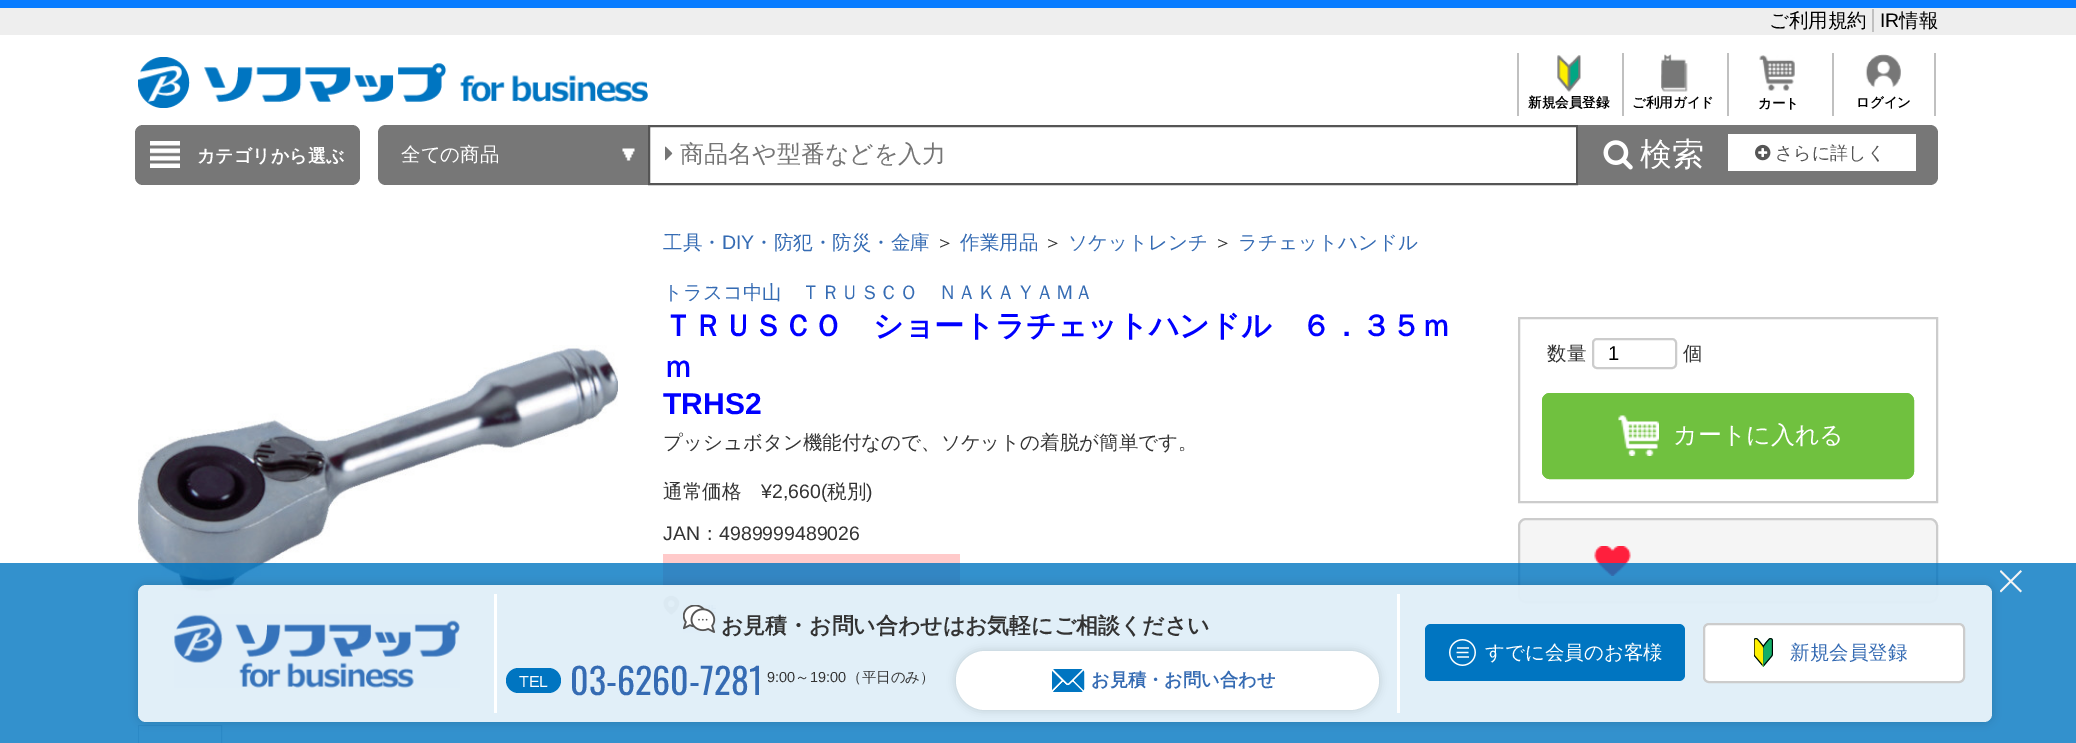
%!PS
<< /PageSize [2076 743] /PageUsesTransparency true >> setpagedevice
/rgb { 3 { 255 div 3 1 roll } repeat setrgbcolor } def
/font { [ exch dup neg 0 0 3 -1 roll 0 0 ] selectfont } def
/text { moveto show } def
/alpha { dup .setfillconstantalpha .setstrokeconstantalpha } def
/roundrect { 5 dict begin { /r /h /w /y /x } { exch def } forall
  x r add y moveto x w add y 2 copy h add r arct x w add y h add x 1 index r arct
  x y h add x y r arct x y 2 copy exch w add exch r arct closepath end } def
/shadow { 12 dict begin { /a /b /q /h /w /y /x } { exch def } forall gsave /was 0 def
  9 -2 -9 { dup b mul 4 div /e exch def 1 sub .425 mul 2.718 exch exp 1 add a .99 .min exch div /now exch def
    1 1 now sub 1 was sub div sub alpha /was now def
    w h .min e 2 mul add 0 gt { x e sub y e sub w e 2 mul add h e 2 mul add
      q e add b .6 mul add w h .min 2 div e add .min 0 .max roundrect fill } if } for grestore end } def
/picture { 5 dict begin { /h /w /y /x /name } { exch def } forall
  gsave x y translate w h scale
  w h 8 [w 0 0 h 0 0] name (r) file false 3 colorimage grestore end } def
0 .pushpdf14devicefilter
0 743 translate 1 -1 scale
4 setmiterlimit
255 255 255 rgb
0 0 2076 743 rectfill
8 124 255 rgb
0 0 2076 8 rectfill
238 238 238 rgb
0 8 2076 27 rectfill
192 192 192 rgb
1872 9 2 23 rectfill
(img_01.rgb) 138 57 510 51 picture
1517 53 2 63 rectfill
(img_02.rgb) 1557 55 24 37 picture
1622 53 2 63 rectfill
(img_03.rgb) 1661 54 27 38 picture
1727 53 2 63 rectfill
(img_04.rgb) 1759 55 36 36 picture
1934 53 2 63 rectfill
1832 53 2 63 rectfill
(img_05.rgb) 1865 54 36 34 picture
119 119 119 rgb
135 125 225 60 8 roundrect fill
(img_06.rgb) 150 141 30 27 picture
386 125 moveto 262 0 rlineto 0 60 rlineto -262 0 rlineto -4.5 0 -8 -3.5 -8 -8 rcurveto 0 -44 rlineto 0 -4.5 3.5 -8 8 -8 rcurveto closepath fill
(img_07.rgb) 622 148 13 13 picture
85 85 85 rgb
2 setlinewidth
649 126 928 58 rectstroke
(img_08.rgb) 665 146 8 15 picture
119 119 119 rgb
1578 125 150 60 rectfill
(img_09.rgb) 1603 140 30 30 picture
1728 125 moveto 202 0 rlineto 4.5 0 8 3.5 8 8 rcurveto 0 44 rlineto 0 4.5 -3.5 8 -8 8 rcurveto -202 0 rlineto closepath fill
255 255 255 rgb
1728 134 188 37 rectfill
(img_10.rgb) 1755 144 16 17 picture
(img_11.rgb) 138 345 480 253 picture
216 216 216 rgb
139 726 82 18 rectstroke
255 255 255 rgb
139 726 82 17 rectfill
255 202 202 rgb
663 554 297 33 rectfill
(img_12.rgb) 663 595 17 20 picture
204 204 204 rgb
1519 318 418 184 rectstroke
1593 339 83 29 4 roundrect stroke
112 193 63 rgb
1542 393 372 86 8 roundrect fill
(img_13.rgb) 1618 415 41 41 picture
1543 394 370 84 7 roundrect stroke
245 245 245 rgb
1518 518 420 85 8 roundrect fill
(img_14.rgb) 1594 546 37 30 picture
204 204 204 rgb
1519 519 418 83 7 roundrect stroke
0.8 alpha
0 117 193 rgb
0 563 2076 180 rectfill
gsave
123 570 moveto 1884 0 rlineto 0 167 rlineto -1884 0 rlineto closepath 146 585 moveto 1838 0 rlineto 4.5 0 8 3.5 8 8 rcurveto 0 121 rlineto 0 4.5 -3.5 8 -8 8 rcurveto -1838 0 rlineto -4.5 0 -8 -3.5 -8 -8 rcurveto 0 -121 rlineto 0 -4.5 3.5 -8 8 -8 rcurveto closepath eoclip newpath
1 alpha
0 0 0 rgb
138 585 1854 137 8 4.5 0.15 shadow
grestore
0.85 alpha
255 255 255 rgb
138 585 1854 137 8 roundrect fill
1 alpha
(img_15.rgb) 2000 570 22 23 picture
(img_16.rgb) 174 614 286 74 picture
1397 594 3 119 rectfill
494 594 3 119 rectfill
(img_17.rgb) 683 605 33 28 picture
0 117 193 rgb
506 668 55 25 12.5 roundrect fill
0 0 0 rgb
956 651 423 59 29.5 4.5 0.15 shadow
255 255 255 rgb
956 651 423 59 29.5 roundrect fill
(img_18.rgb) 1052 669 33 23 picture
0 117 193 rgb
1425 624 260 57 6 roundrect fill
(img_19.rgb) 1449 639 27 27 picture
255 255 255 rgb
1704 624 260 58 5 roundrect gsave fill grestore
204 204 204 rgb
stroke
(img_20.rgb) 1754 638 19 29 picture
/WenQuanYiZenHei-Medium 19.5 font
0 0 0 rgb
(ご利用規約) 1769 27 text
/LiberationSans-Regular 19.5 font
(IR) 1880 27 text
/WenQuanYiZenHei-Medium 19.5 font
(情報) 1899 27 text
/WenQuanYiZenHei-Bold 13.5 font
(新規会員登録) 1528 107 text
(ご利用ガイド) 1632 107 text
(カート) 1758 108 text
(ログイン) 1856 107 text
/WenQuanYiZenHei-Bold 18 font
255 255 255 rgb
(カテゴリから選ぶ) 197 162 text
/WenQuanYiZenHei-Medium 19.5 font
(全ての商品) 401 161 text
/WenQuanYiZenHei-Medium 24 font
117 117 117 rgb
(商品名や型番などを入力) 680 162 text
/WenQuanYiZenHei-Medium 32 font
255 255 255 rgb
(検索) 1640 165 text
/WenQuanYiZenHei-Medium 18 font
85 85 85 rgb
(さらに詳しく) 1775 159 text
/WenQuanYiZenHei-Medium 19.5 font
53 107 179 rgb
(工具・) 663 249 text
/LiberationSans-Regular 19.5 font
(DIY) 722 249 text
/WenQuanYiZenHei-Medium 19.5 font
(・防犯・防災・金庫) 754 249 text
51 51 51 rgb
(＞) 935 249 text
53 107 179 rgb
(作業用品) 960 249 text
51 51 51 rgb
(＞) 1043 249 text
53 107 179 rgb
(ソケットレンチ) 1068 249 text
51 51 51 rgb
(＞) 1213 249 text
53 107 179 rgb
(ラチェットハンドル) 1238 249 text
(トラスコ中山　ＴＲＵＳＣＯ　ＮＡＫＡＹＡＭＡ) 663 299 text
/WenQuanYiZenHei-Bold 30 font
0 0 255 rgb
(ＴＲＵＳＣＯ　ショートラチェットハンドル　６．３５ｍ) 663 336 text
(ｍ) 663 377 text
/LiberationSans-Bold 30 font
(TRHS2) 663 414 text
/WenQuanYiZenHei-Medium 19.5 font
51 51 51 rgb
(プッシュボタン機能付なので、ソケットの着脱が簡単です。) 663 449 text
(通常価格) 663 498 text
/LiberationSans-Regular 19.5 font
(¥2,660\() 761 498 text
/WenQuanYiZenHei-Medium 19.5 font
(税別) 827 498 text
/LiberationSans-Regular 19.5 font
(\)) 866 498 text
(JAN) 663 540 text
/WenQuanYiZenHei-Medium 19.5 font
(：) 700 540 text
/LiberationSans-Regular 19.5 font
(4989999489026) 719 540 text
/WenQuanYiZenHei-Medium 19.5 font
(数量) 1547 360 text
/LiberationSans-Regular 20 font
0 0 0 rgb
(1) 1608 360 text
/WenQuanYiZenHei-Medium 19.5 font
51 51 51 rgb
(個) 1683 360 text
/WenQuanYiZenHei-Medium 24 font
255 255 255 rgb
(カートに入れる) 1673 443 text
/WenQuanYiZenHei-Bold 21.9 font
51 51 51 rgb
(お見積・お問い合わせはお気軽にご相談ください) 721 633 text
/LiberationSans-Regular 16 font
255 255 255 rgb
(TEL) 519 687 text
/Oswald-Regular 36 font
53 107 179 rgb
(03-6260-7281) 570 695 text
/LiberationSans-Regular 14.5 font
51 51 51 rgb
(9:00) 767 682 text
/WenQuanYiZenHei-Medium 14.5 font
(～) 795 682 text
/LiberationSans-Regular 14.5 font
(19:00) 810 682 text
/WenQuanYiZenHei-Medium 14.5 font
(（平日のみ）) 847 682 text
/WenQuanYiZenHei-Bold 18.25 font
53 107 179 rgb
(お見積・お問い合わせ) 1091 686 text
/WenQuanYiZenHei-Medium 19.5 font
255 255 255 rgb
(すでに会員のお客様) 1485 659 text
53 107 179 rgb
(新規会員登録) 1790 659 text
.poppdf14devicefilter showpage
